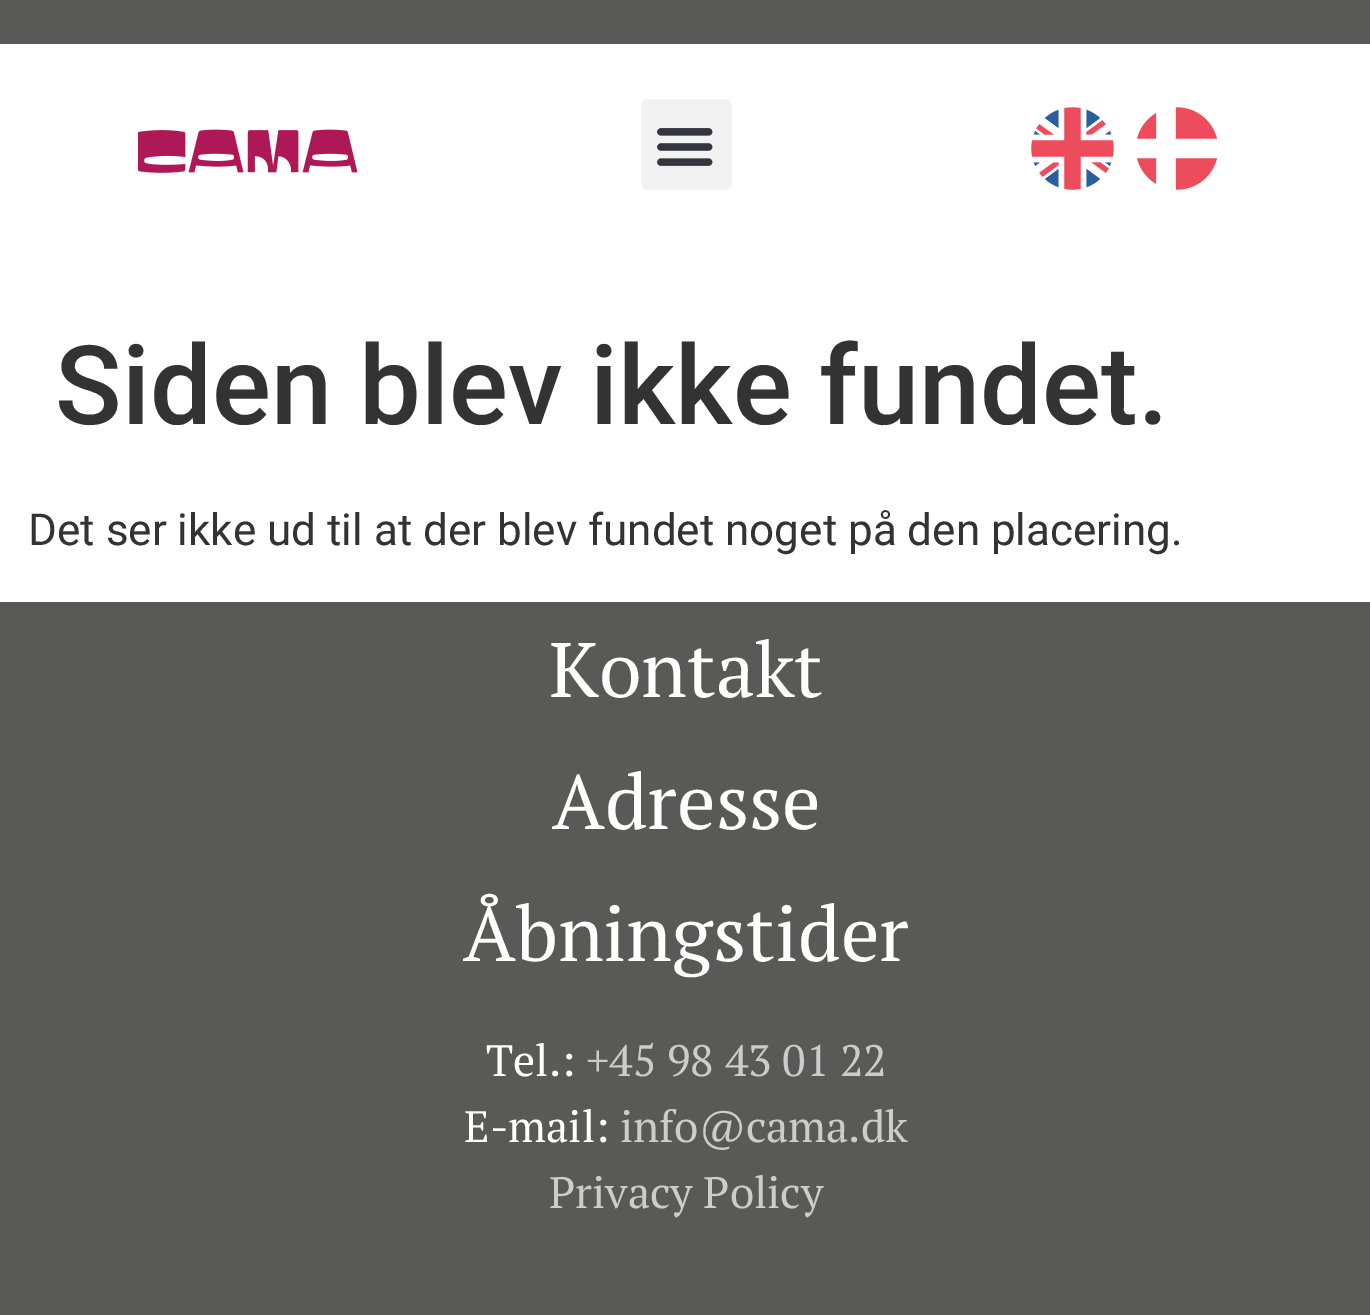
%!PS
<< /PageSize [1370 1315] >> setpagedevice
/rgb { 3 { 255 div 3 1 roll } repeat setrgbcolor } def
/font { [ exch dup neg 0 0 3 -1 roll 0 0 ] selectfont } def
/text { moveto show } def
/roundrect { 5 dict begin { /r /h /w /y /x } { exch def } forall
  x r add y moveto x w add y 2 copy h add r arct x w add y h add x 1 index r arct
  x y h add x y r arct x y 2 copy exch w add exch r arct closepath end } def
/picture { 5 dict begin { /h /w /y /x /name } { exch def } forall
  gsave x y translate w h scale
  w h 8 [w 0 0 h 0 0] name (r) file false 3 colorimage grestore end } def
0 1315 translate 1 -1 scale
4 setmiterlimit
255 255 255 rgb
0 0 1370 1315 rectfill
89 89 88 rgb
0 0 1370 44 rectfill
(img_01.rgb) 138 129 220 44 picture
242 242 242 rgb
641 99 91 91 8 roundrect fill
(img_02.rgb) 657 128 56 38 picture
(img_03.rgb) 1031 107 83 83 picture
(img_04.rgb) 1136 107 82 83 picture
89 89 88 rgb
0 602 1370 713 rectfill
/Roboto-Medium 110 font
51 51 51 rgb
(Siden blev ikke fundet.) 55 424 text
/Roboto-Regular 44 font
(Det ser ikke ud til at der blev fundet noget på den placering.) 28 545 text
/PTSerif-Regular 77 font
255 255 255 rgb
(Kontakt) 549 697 text
(Adresse) 552 829 text
(Åbningstider) 463 961 text
/PTSerif-Regular 44 font
(Tel.:) 486 1076 text
204 204 204 rgb
(+45 98 43 01 22) 586 1076 text
255 255 255 rgb
(E-mail:) 464 1142 text
204 204 204 rgb
(info@cama.dk) 620 1142 text
(Privacy Policy) 549 1208 text
showpage
